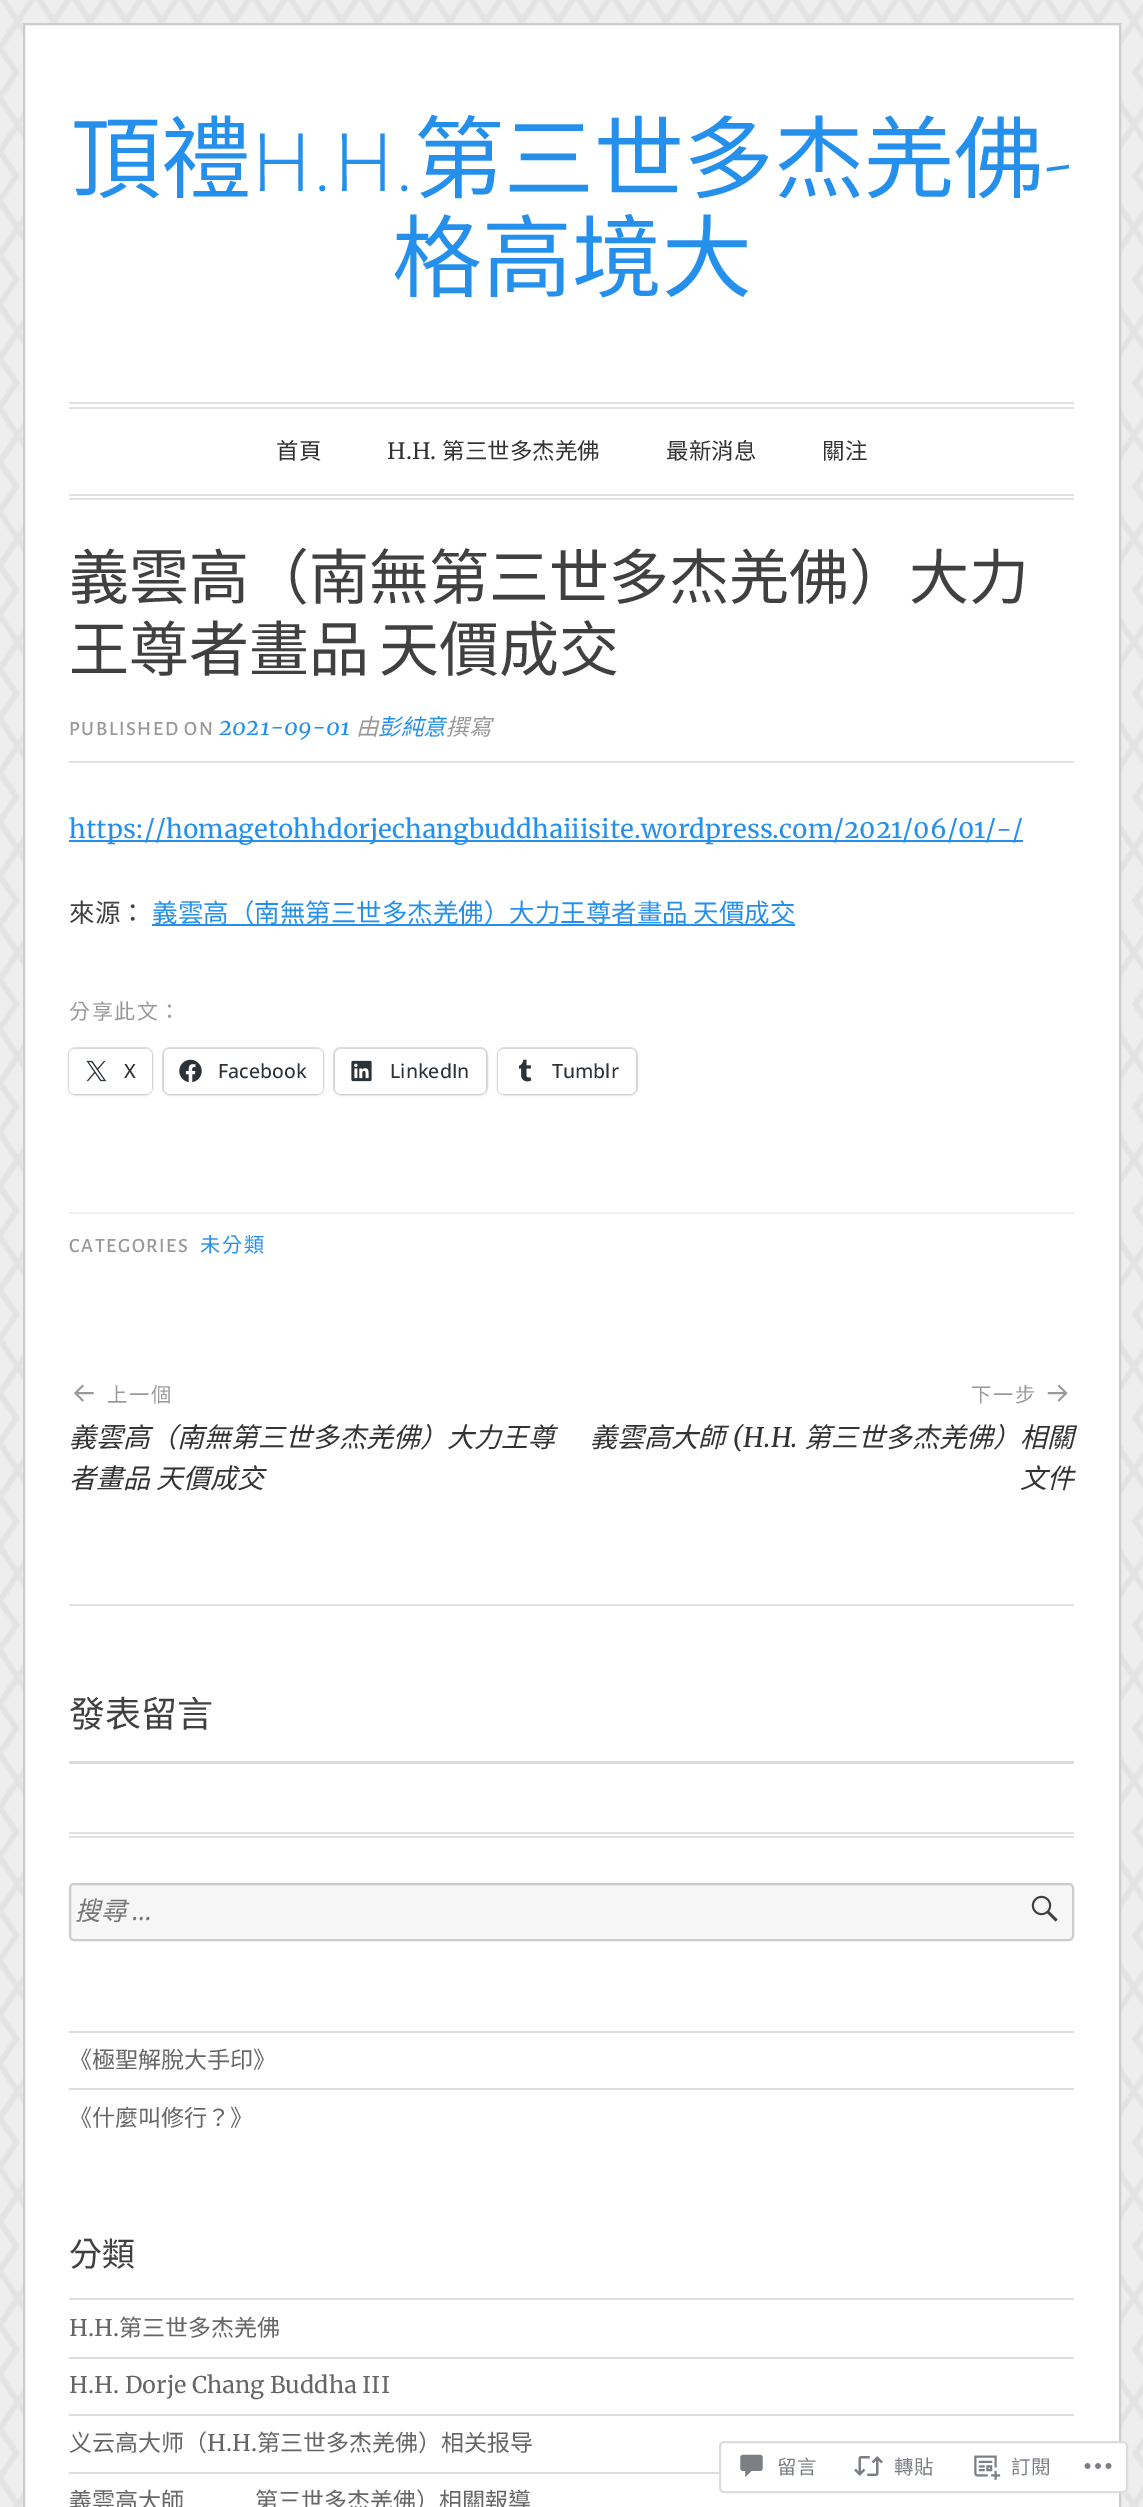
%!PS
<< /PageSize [1143 2507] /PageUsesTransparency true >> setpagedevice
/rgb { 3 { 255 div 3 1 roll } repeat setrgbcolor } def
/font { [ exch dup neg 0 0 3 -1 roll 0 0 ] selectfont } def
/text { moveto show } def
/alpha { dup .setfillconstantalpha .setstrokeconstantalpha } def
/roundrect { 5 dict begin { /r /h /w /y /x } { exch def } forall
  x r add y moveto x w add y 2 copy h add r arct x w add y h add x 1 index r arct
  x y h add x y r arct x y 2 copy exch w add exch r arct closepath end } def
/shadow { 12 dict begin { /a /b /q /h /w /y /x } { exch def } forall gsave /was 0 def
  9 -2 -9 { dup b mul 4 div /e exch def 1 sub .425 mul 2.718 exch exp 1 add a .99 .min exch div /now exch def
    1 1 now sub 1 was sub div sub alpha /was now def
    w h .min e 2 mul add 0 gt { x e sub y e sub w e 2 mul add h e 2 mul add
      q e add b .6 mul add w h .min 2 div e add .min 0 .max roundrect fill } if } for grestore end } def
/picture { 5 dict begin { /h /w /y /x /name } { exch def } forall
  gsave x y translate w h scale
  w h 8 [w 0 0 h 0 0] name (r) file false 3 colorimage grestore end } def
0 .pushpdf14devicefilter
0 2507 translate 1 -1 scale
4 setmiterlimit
238 238 238 rgb
0 0 1143 2507 rectfill
(img_01.rgb) 0 0 1143 2507 picture
255 255 255 rgb
24 24 moveto 1096 0 rlineto 0 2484 rlineto -1096 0 rlineto closepath gsave fill grestore
204 204 204 rgb
2 setlinewidth
stroke
225 225 225 rgb
69 402 1005 2 rectfill
69 407 1005 2 rectfill
69 494 1005 2 rectfill
69 498 1005 2 rectfill
69 761 1005 2 rectfill
37 144 236 rgb
69 840 954 2 rectfill
152 924 643 2 rectfill
224 224 224 rgb
69 1048 83 46 7 roundrect stroke
0 0 0 rgb
69 1050 83 45 6 1.5 0.12 shadow
255 255 255 rgb
69 1049 83 45 6 roundrect fill
(img_02.rgb) 86 1060 21 22 picture
224 224 224 rgb
163 1048 160 46 7 roundrect stroke
0 0 0 rgb
164 1050 159 45 6 1.5 0.12 shadow
255 255 255 rgb
164 1049 159 45 6 roundrect fill
(img_03.rgb) 179 1059 23 24 picture
224 224 224 rgb
334 1048 153 46 7 roundrect stroke
0 0 0 rgb
335 1050 151 45 6 1.5 0.12 shadow
255 255 255 rgb
335 1049 151 45 6 roundrect fill
(img_04.rgb) 351 1060 21 22 picture
224 224 224 rgb
498 1048 139 46 7 roundrect stroke
0 0 0 rgb
498 1050 138 45 6 1.5 0.12 shadow
255 255 255 rgb
498 1049 138 45 6 roundrect fill
(img_05.rgb) 518 1059 14 23 picture
239 239 239 rgb
69 1212 1005 2 rectfill
(img_06.rgb) 74 1384 20 18 picture
(img_07.rgb) 1047 1384 21 18 picture
225 225 225 rgb
69 1604 1005 2 rectfill
220 220 222 rgb
69 1761 1005 3 rectfill
225 225 225 rgb
69 1832 1005 2 rectfill
69 1836 1005 2 rectfill
246 246 246 rgb
70 1884 1003 56 4 roundrect gsave fill grestore
204 204 204 rgb
stroke
(img_08.rgb) 1031 1895 27 27 picture
221 221 221 rgb
69 2031 1005 2 rectfill
69 2088 1005 2 rectfill
69 2298 1005 2 rectfill
69 2357 1005 2 rectfill
69 2414 1005 2 rectfill
69 2472 1005 2 rectfill
0.98 alpha
255 255 255 rgb
719 2441 409 52 5 roundrect fill
220 220 222 rgb
720 2442 407 50 4 roundrect stroke
1 alpha
(img_09.rgb) 740 2454 23 24 picture
(img_10.rgb) 854 2456 29 20 picture
(img_11.rgb) 974 2455 27 25 picture
(img_12.rgb) 1084 2463 28 6 picture
/NotoSansCJKTC-Regular 90 font
37 144 236 rgb
(頂禮) 71 191 text
/AlegreyaSans-Light 90 font
(H.H.) 251 191 text
/NotoSansCJKTC-Regular 90 font
(第三世多杰羌佛) 414 191 text
/AlegreyaSans-Light 90 font
(-) 1044 191 text
/NotoSansCJKTC-Regular 90 font
(格高境大) 392 290 text
/NotoSansCJKTC-Regular 22.5 font
51 51 51 rgb
(首頁) 276 459 text
/Merriweather-Regular 22.5 font
(H.H.) 387 459 text
/NotoSansCJKTC-Regular 22.5 font
(第三世多杰羌佛) 442 459 text
(最新消息) 666 459 text
(關注) 822 459 text
/NotoSansCJKTC-Regular 60 font
64 64 64 rgb
(義雲高（南無第三世多杰羌佛）大力) 69 599 text
69 671 moveto -3 0 32 (王尊者畫品 天價成交) widthshow
/AlegreyaSans-Medium 20.25 font
153 153 153 rgb
69 735 moveto 1.6 0 (PUBLISHED ON) ashow
/Merriweather-Italic 22.5 font
37 144 236 rgb
(2021-09-01) 219 735 text
/NotoSansCJKTC-Italic 22.5 font
153 153 153 rgb
(由) 356 735 text
37 144 236 rgb
(彭純意) 378 735 text
153 153 153 rgb
(撰寫) 446 735 text
/Merriweather-Regular 25.5 font
37 144 236 rgb
(https://homagetohhdorjechangbuddhaiiisite.wordpress.com/2021/06/01/-/) 69 838 text
/NotoSansCJKTC-Regular 25.5 font
64 64 64 rgb
(來源：) 69 922 text
37 144 236 rgb
(義雲高（南無第三世多杰羌佛）大力王尊者畫品 天價成交) 152 922 text
/NotoSansCJKTC-Regular 21 font
153 153 153 rgb
69 1019 moveto 1.5 0 (分享此文：) ashow
/OpenSans-Medium 19.5 font
44 51 56 rgb
(X) 124 1078 text
(Facebook) 218 1078 text
(LinkedIn) 390 1078 text
(Tumblr) 552 1078 text
/AlegreyaSans-Medium 20.25 font
153 153 153 rgb
69 1252 moveto 1.6 0 (CATEGORIES) ashow
/NotoSansCJKTC-Regular 20.25 font
37 144 236 rgb
200 1252 moveto 1.6 0 (未分類) ashow
153 153 153 rgb
107 1402 moveto 1.6 0 (上一個) ashow
/NotoSansCJKTC-Italic 27 font
51 51 51 rgb
(義雲高（南無第三世多杰羌佛）大力王尊) 69 1447 text
(者畫品 天價成交) 69 1488 text
/NotoSansCJKTC-Regular 20.25 font
153 153 153 rgb
971 1402 moveto 1.6 0 (下一步) ashow
/NotoSansCJKTC-Italic 27 font
51 51 51 rgb
(義雲高大師) 590 1447 text
/Merriweather-Italic 27 font
(\(H.H.) 732 1447 text
/NotoSansCJKTC-Italic 27 font
(第三世多杰羌佛）相關) 804 1447 text
(文件) 1020 1488 text
/NotoSansCJKTC-Regular 36 font
64 64 64 rgb
(發表留言) 69 1727 text
/NotoSansCJKTC-Italic 25.5 font
117 117 117 rgb
(搜尋) 75 1920 text
/Merriweather-Italic 25.5 font
(…) 132 1920 text
/NotoSansCJKTC-Regular 23 font
102 102 102 rgb
(《極聖解脫大手印》) 69 2068 text
(《什麼叫修行？》) 69 2126 text
/NotoSansCJKTC-Regular 33 font
64 64 64 rgb
(分類) 69 2266 text
/Merriweather-Regular 23 font
102 102 102 rgb
(H.H.) 69 2336 text
/NotoSansCJKTC-Regular 23 font
(第三世多杰羌佛) 119 2336 text
/Merriweather-Regular 23 font
(H.H. Dorje Chang Buddha III) 69 2393 text
/NotoSansCJKTC-Regular 23 font
(义云高大师（) 69 2451 text
/Merriweather-Regular 23 font
(H.H.) 207 2451 text
/NotoSansCJKTC-Regular 23 font
(第三世多杰羌佛）相关报导) 257 2451 text
(義雲高大師) 69 2509 text
(第三世多杰羌佛）相關報導) 255 2509 text
/NotoSansCJKTC-Regular 19.5 font
123 127 132 rgb
(留言) 777 2474 text
(轉貼) 894 2474 text
(訂閱) 1011 2474 text
.poppdf14devicefilter showpage
